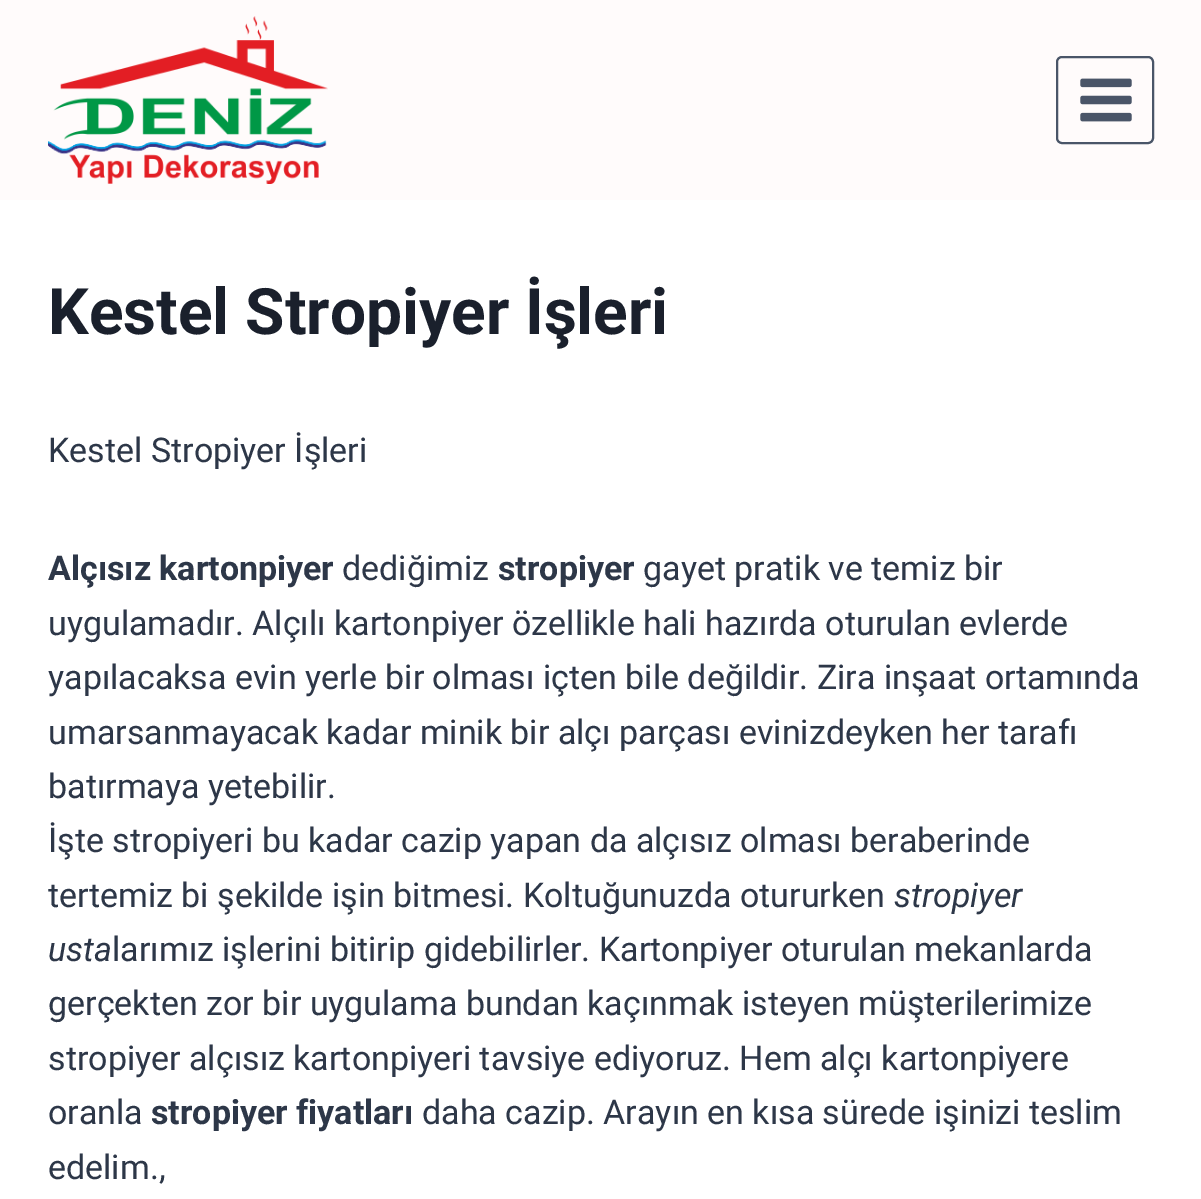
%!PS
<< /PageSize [1201 1199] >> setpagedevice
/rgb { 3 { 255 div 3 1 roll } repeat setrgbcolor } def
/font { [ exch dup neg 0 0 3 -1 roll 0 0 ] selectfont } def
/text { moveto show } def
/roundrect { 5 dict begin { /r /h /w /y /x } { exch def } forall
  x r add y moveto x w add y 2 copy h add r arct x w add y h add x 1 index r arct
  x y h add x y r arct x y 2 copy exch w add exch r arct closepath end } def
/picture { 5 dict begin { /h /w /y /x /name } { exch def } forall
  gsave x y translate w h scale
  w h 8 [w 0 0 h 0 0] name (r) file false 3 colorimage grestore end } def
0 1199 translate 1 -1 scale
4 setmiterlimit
255 255 255 rgb
0 0 1201 1199 rectfill
255 251 251 rgb
0 0 1201 200 rectfill
(img_01.rgb) 48 16 280 168 picture
74 85 104 rgb
2 setlinewidth
1057 57 96 86 5 roundrect stroke
(img_02.rgb) 1080 78 52 44 picture
/Roboto-Bold 64 font
26 32 44 rgb
(Kestel Stropiyer İşleri) 48 334 text
/Roboto-Regular 34 font
45 55 72 rgb
(Kestel Stropiyer İşleri) 48 462 text
/Roboto-Bold 34 font
(Alçısız kartonpiyer) 48 580 text
/Roboto-Regular 34 font
(dediğimiz) 342 580 text
/Roboto-Bold 34 font
(stropiyer) 498 580 text
/Roboto-Regular 34 font
(gayet pratik ve temiz bir) 643 580 text
(uygulamadır. Alçılı kartonpiyer özellikle hali hazırda oturulan evlerde) 48 635 text
(yapılacaksa evin yerle bir olması içten bile değildir. Zira inşaat ortamında) 48 689 text
(umarsanmayacak kadar minik bir alçı parçası evinizdeyken her tarafı) 48 744 text
(batırmaya yetebilir.) 48 798 text
(İşte stropiyeri bu kadar cazip yapan da alçısız olması beraberinde) 48 852 text
(tertemiz bi şekilde işin bitmesi. Koltuğunuzda otururken) 48 907 text
/Roboto-Italic 34 font
(stropiyer) 894 907 text
(usta) 48 961 text
/Roboto-Regular 34 font
(larımız işlerini bitirip gidebilirler. Kartonpiyer oturulan mekanlarda) 112 961 text
(gerçekten zor bir uygulama bundan kaçınmak isteyen müşterilerimize) 48 1015 text
(stropiyer alçısız kartonpiyeri tavsiye ediyoruz. Hem alçı kartonpiyere) 48 1070 text
(oranla) 48 1124 text
/Roboto-Bold 34 font
(stropiyer fiyatları) 151 1124 text
/Roboto-Regular 34 font
(daha cazip. Arayın en kısa sürede işinizi teslim) 422 1124 text
(edelim.,) 48 1179 text
showpage
